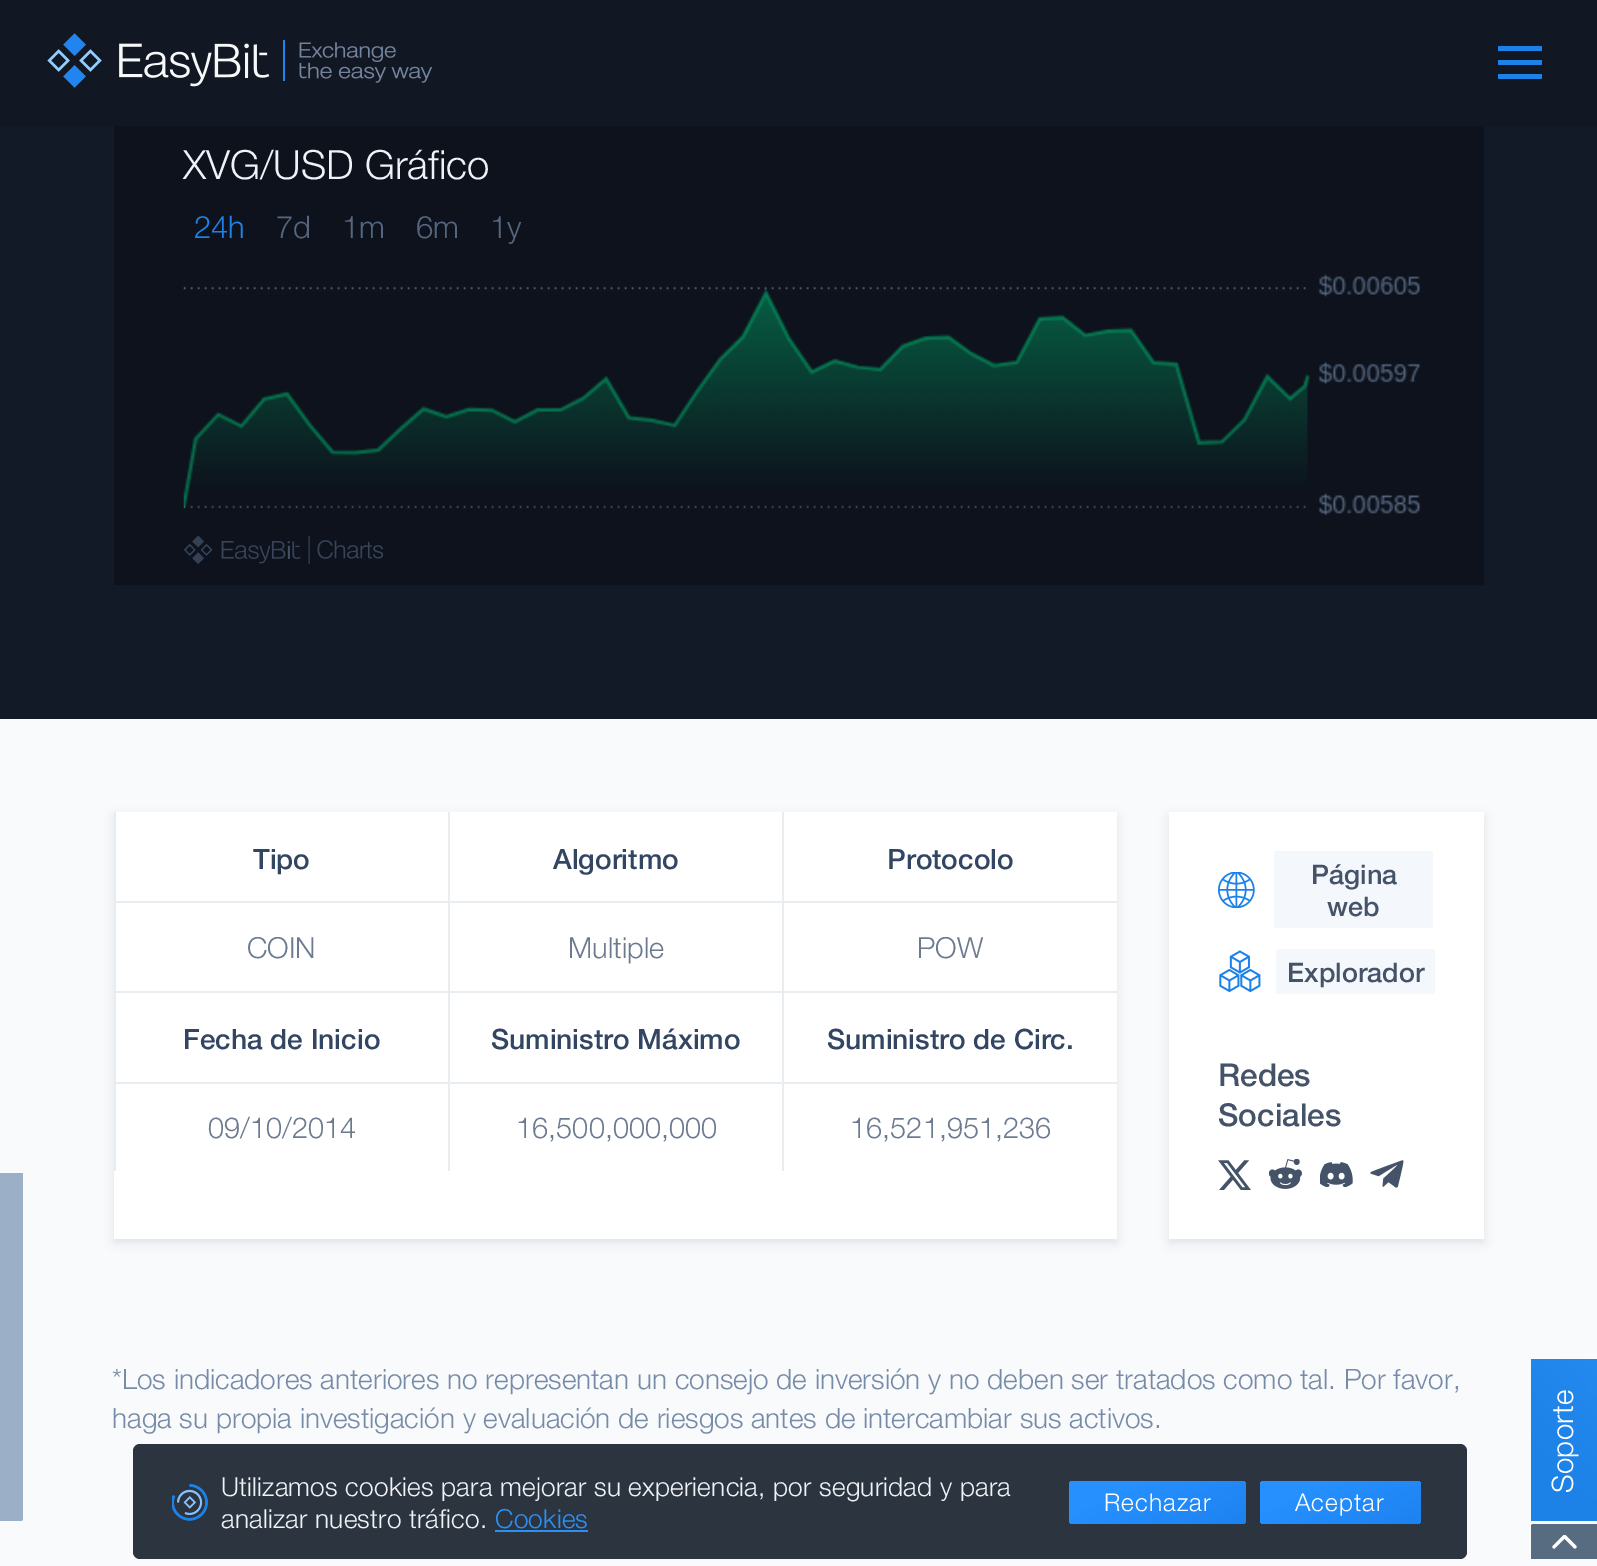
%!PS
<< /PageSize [1597 1566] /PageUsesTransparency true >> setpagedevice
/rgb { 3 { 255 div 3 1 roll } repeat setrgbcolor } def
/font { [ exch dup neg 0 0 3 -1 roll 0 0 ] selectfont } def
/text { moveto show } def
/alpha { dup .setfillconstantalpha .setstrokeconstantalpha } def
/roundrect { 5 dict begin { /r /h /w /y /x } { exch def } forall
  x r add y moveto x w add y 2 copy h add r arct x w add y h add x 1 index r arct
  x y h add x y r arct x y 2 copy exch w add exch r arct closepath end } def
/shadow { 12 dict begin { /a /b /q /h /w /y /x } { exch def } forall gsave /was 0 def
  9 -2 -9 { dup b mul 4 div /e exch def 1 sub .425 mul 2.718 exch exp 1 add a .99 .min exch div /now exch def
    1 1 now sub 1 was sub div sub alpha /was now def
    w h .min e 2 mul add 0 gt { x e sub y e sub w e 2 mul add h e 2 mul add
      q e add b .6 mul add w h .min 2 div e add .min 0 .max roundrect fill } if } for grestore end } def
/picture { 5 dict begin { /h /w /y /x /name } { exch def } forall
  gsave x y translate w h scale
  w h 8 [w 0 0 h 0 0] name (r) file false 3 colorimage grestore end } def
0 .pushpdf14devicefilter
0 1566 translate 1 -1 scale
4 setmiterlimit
249 250 252 rgb
0 0 1597 1566 rectfill
155 176 198 rgb
-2 1173 moveto 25 0 rlineto 0 346 rlineto 0 1 -1 2 -2 2 rcurveto -21 0 rlineto -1 0 -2 -1 -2 -2 rcurveto closepath fill
17 24 35 rgb
0 0 1597 126 rectfill
(img_01.rgb) 47 33 385 55 picture
28 130 232 rgb
1498 46 44 5 rectfill
1498 60 44 5 rectfill
1498 74 44 5 rectfill
18 26 40 rgb
0 126 1597 593 rectfill
0.3 alpha
0 0 0 rgb
114 126 1370 459 rectfill
1 alpha
(img_02.rgb) 183 274 1238 242 picture
(img_03.rgb) 184 536 199 28 picture
223 226 231 rgb
114 816 1003 427 0 5 1 shadow
255 255 255 rgb
114 812 1003 427 rectfill
232 237 242 rgb
114 991 1003 2 rectfill
114 812 2 179 rectfill
116 901 332 2 rectfill
448 812 2 179 rectfill
450 901 332 2 rectfill
782 812 2 179 rectfill
784 901 333 2 rectfill
114 992 2 179 rectfill
116 1082 332 2 rectfill
448 992 2 179 rectfill
450 1082 332 2 rectfill
782 992 2 179 rectfill
784 1082 333 2 rectfill
223 226 231 rgb
1169 816 315 427 0 5 1 shadow
255 255 255 rgb
1169 812 315 427 rectfill
(img_04.rgb) 1218 872 37 36 picture
244 247 251 rgb
1274 851 159 77 2 roundrect fill
(img_05.rgb) 1219 950 42 42 picture
1276 949 159 45 2 roundrect fill
(img_06.rgb) 1218 1160 33 30 picture
(img_07.rgb) 1269 1159 33 30 picture
(img_08.rgb) 1320 1162 33 25 picture
(img_09.rgb) 1370 1160 34 28 picture
gsave 1596 1521 moveto -63 0 rlineto -1 0 -2 -1 -2 -2 rcurveto 0 -160 rlineto 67 0 rlineto 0 160 rlineto 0 1 -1 2 -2 2 rcurveto closepath clip newpath
<< /ShadingType 2 /ColorSpace /DeviceRGB /Coords [1507 1497 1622 1383] /Extend [true true] /Function << /FunctionType 3 /Domain [0 1] /Functions [<< /FunctionType 2 /Domain [0 1] /C0 [0.11 0.51 0.91] /C1 [0.11 0.51 0.91] /N 1 >> << /FunctionType 2 /Domain [0 1] /C0 [0.11 0.51 0.91] /C1 [0.145 0.541 0.937] /N 1 >>] /Bounds [0.28] /Encode [0 1 0 1] >> >> shfill grestore
43 52 63 rgb
133 1444 1334 115 7 roundrect fill
(img_10.rgb) 172 1484 36 37 picture
42 144 243 rgb
495 1530 93 2 rectfill
gsave 1069 1481 177 43 4 roundrect clip newpath
<< /ShadingType 2 /ColorSpace /DeviceRGB /Coords [1133 1451 1181 1554] /Extend [true true] /Function << /FunctionType 3 /Domain [0 1] /Functions [<< /FunctionType 2 /Domain [0 1] /C0 [0.149 0.565 1] /C1 [0.149 0.565 1] /N 1 >> << /FunctionType 2 /Domain [0 1] /C0 [0.149 0.565 1] /C1 [0.114 0.51 0.941] /N 1 >>] /Bounds [0.28] /Encode [0 1 0 1] >> >> shfill grestore
gsave 1260 1481 161 43 4 roundrect clip newpath
<< /ShadingType 2 /ColorSpace /DeviceRGB /Coords [1317 1454 1363 1551] /Extend [true true] /Function << /FunctionType 3 /Domain [0 1] /Functions [<< /FunctionType 2 /Domain [0 1] /C0 [0.149 0.565 1] /C1 [0.149 0.565 1] /N 1 >> << /FunctionType 2 /Domain [0 1] /C0 [0.149 0.565 1] /C1 [0.114 0.51 0.941] /N 1 >>] /Bounds [0.28] /Encode [0 1 0 1] >> >> shfill grestore
87 108 129 rgb
1533 1524 moveto 63 0 rlineto 1 0 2 1 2 2 rcurveto 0 33 rlineto -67 0 rlineto 0 -33 rlineto 0 -1 1 -2 2 -2 rcurveto closepath fill
(img_11.rgb) 1552 1535 25 14 picture
/HelveticaNeue-Light 40.25 font
239 242 247 rgb
(XVG/USD Gráfico) 183 179 text
/HelveticaNeue-Light 31 font
28 130 232 rgb
(24h) 194 238 text
85 102 126 rgb
(7d) 276 238 text
(1m) 342 238 text
(6m) 416 238 text
(1y) 490 238 text
/HelveticaNeue-Medium 28 font
50 70 100 rgb
(Tipo) 253 869 text
/HelveticaNeue-Light 29 font
108 122 144 rgb
(COIN) 247 958 text
/HelveticaNeue-Medium 28 font
50 70 100 rgb
(Algoritmo) 553 869 text
/HelveticaNeue-Light 29 font
108 122 144 rgb
(Multiple) 568 958 text
/HelveticaNeue-Medium 28 font
50 70 100 rgb
(Protocolo) 887 869 text
/HelveticaNeue-Light 29 font
108 122 144 rgb
(POW) 917 958 text
/HelveticaNeue-Medium 28 font
50 70 100 rgb
(Fecha de Inicio) 183 1049 text
/HelveticaNeue-Light 29 font
108 122 144 rgb
(09/10/2014) 208 1138 text
/HelveticaNeue-Medium 28 font
50 70 100 rgb
(Suministro Máximo) 491 1049 text
/HelveticaNeue-Light 29 font
108 122 144 rgb
(16,500,000,000) 516 1138 text
/HelveticaNeue-Medium 28 font
50 70 100 rgb
(Suministro de Circ.) 827 1049 text
/HelveticaNeue-Light 29 font
108 122 144 rgb
(16,521,951,236) 850 1138 text
/HelveticaNeue-Medium 27 font
69 83 105 rgb
(Página) 1311 884 text
(web) 1327 916 text
(Explorador) 1287 982 text
/HelveticaNeue-Medium 31.5 font
(Redes) 1218 1086 text
(Sociales) 1218 1126 text
/HelveticaNeue-Light 28 font
118 139 168 rgb
(*Los indicadores anteriores no representan un consejo de inversión y no deben ser tratados como tal. Por favor,) 112 1389 text
(haga su propia investigación y evaluación de riesgos antes de intercambiar sus activos.) 112 1428 text
/HelveticaNeue-Light 29.5 font
255 255 255 rgb
gsave 1573 1493 translate -90 rotate 0 0 moveto 0.25 0 (Soporte) ashow grestore
/HelveticaNeue-Light 26.25 font
239 242 247 rgb
221 1496 moveto 0.18 0 (Utilizamos cookies para mejorar su experiencia, por seguridad y para) ashow
221 1528 moveto 0.18 0 (analizar nuestro tráfico.) ashow
42 144 243 rgb
495 1528 moveto 0.18 0 (Cookies) ashow
/HelveticaNeue-Light 24.5 font
255 255 255 rgb
1104 1511 moveto 1 0 (Rechazar) ashow
1295 1511 moveto 1 0 (Aceptar) ashow
.poppdf14devicefilter showpage
